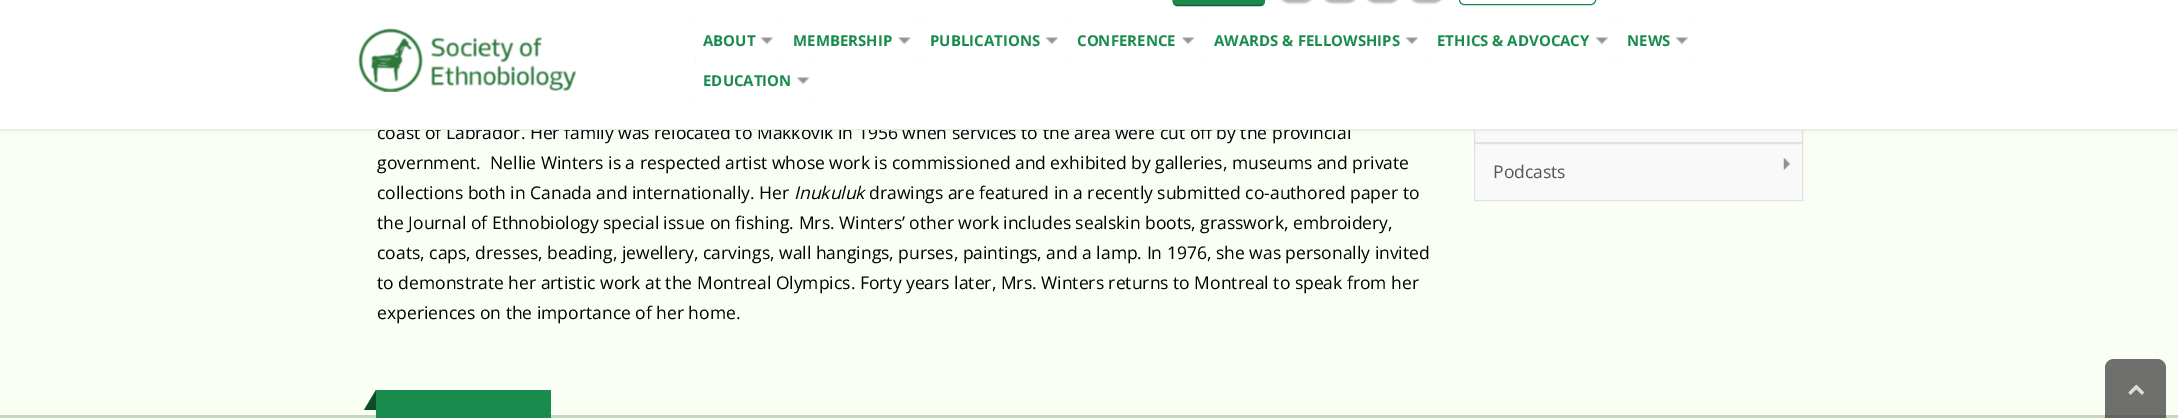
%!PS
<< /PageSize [2178 418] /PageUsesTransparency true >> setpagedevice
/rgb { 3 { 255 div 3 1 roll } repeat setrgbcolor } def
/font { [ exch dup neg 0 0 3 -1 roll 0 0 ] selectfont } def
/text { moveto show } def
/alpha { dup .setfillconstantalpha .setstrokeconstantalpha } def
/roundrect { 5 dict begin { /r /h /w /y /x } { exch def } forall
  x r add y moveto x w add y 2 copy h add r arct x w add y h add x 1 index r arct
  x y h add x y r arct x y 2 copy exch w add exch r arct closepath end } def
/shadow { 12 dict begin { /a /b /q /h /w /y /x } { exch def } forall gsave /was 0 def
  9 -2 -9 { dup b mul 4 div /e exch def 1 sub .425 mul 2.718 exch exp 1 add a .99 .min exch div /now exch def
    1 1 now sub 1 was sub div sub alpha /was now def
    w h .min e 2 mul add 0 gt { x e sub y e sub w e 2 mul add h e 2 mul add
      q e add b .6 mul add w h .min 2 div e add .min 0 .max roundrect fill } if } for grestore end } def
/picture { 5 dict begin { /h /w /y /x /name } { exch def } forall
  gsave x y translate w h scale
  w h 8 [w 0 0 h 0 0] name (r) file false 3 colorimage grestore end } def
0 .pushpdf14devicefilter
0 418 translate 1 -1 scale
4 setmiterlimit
250 255 245 rgb
0 0 2178 418 rectfill
249 249 249 rgb
1475 130 327 12 rectfill
225 225 225 rgb
1474.5 84.5 328 58 rectstroke
0 0 0 rgb
0 -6 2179 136 0 2 0.1 shadow
249 249 249 rgb
1474.5 143.5 moveto 328 0 rlineto 0 57 rlineto -328 0 rlineto closepath gsave fill grestore
225 225 225 rgb
stroke
(img_05.rgb) 1783 158 8 12 picture
197 219 181 rgb
0 415 2178 3 rectfill
25 140 77 rgb
376 390 175 28 rectfill
13 75 41 rgb
376 390 moveto 0 20 rlineto -12 0 rlineto closepath fill
0.75 alpha
64 64 64 rgb
2114 359 moveto 43 0 rlineto 5 0 9 4 9 9 rcurveto 0 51 rlineto -61 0 rlineto 0 -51 rlineto 0 -5 4 -9 9 -9 rcurveto closepath fill
1 alpha
(img_06.rgb) 2128 384 17 11 picture
/OpenSans-Regular 17.5 font
0 0 0 rgb
(coast of Labrador. Her family was relocated to Makkovik in 1956 when services to the area were cut off by the provincial) 377 139 text
255 255 255 rgb
0 0 2178 129 rectfill
249 249 249 rgb
694 61 122 40 rectfill
255 255 255 rgb
694 61 122 40 5 roundrect fill
(img_04.rgb) 797 77 13 8 picture
/OpenSans-Bold 15 font
25 140 77 rgb
(EDUCATION) 703 86 text
249 249 249 rgb
1618 21 77 40 rectfill
255 255 255 rgb
1618 21 77 40 5 roundrect fill
(img_02.rgb) 1675 37 13 8 picture
25 140 77 rgb
(NEWS) 1627 46 text
249 249 249 rgb
1428 21 187 40 rectfill
255 255 255 rgb
1428 21 187 40 5 roundrect fill
(img_02.rgb) 1595 37 13 8 picture
25 140 77 rgb
(ETHICS & ADVOCACY) 1437 46 text
249 249 249 rgb
1204 21 221 40 rectfill
255 255 255 rgb
1204 21 221 40 5 roundrect fill
(img_02.rgb) 1405 37 13 8 picture
25 140 77 rgb
(AWARDS & FELLOWSHIPS) 1214 46 text
249 249 249 rgb
1068 21 133 40 rectfill
255 255 255 rgb
1068 21 133 40 5 roundrect fill
(img_04.rgb) 1182 37 13 8 picture
25 140 77 rgb
(CONFERENCE) 1077 46 text
249 249 249 rgb
920 21 145 40 rectfill
255 255 255 rgb
920 21 145 40 5 roundrect fill
(img_02.rgb) 1045 37 13 8 picture
25 140 77 rgb
(PUBLICATIONS) 930 46 text
249 249 249 rgb
783 21 135 40 rectfill
255 255 255 rgb
783 21 135 40 5 roundrect fill
(img_03.rgb) 898 37 13 8 picture
25 140 77 rgb
(MEMBERSHIP) 793 46 text
249 249 249 rgb
694 21 86 40 rectfill
255 255 255 rgb
694 21 86 40 5 roundrect fill
(img_02.rgb) 760 37 13 8 picture
25 140 77 rgb
(ABOUT) 703 46 text
1459.5 -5.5 136 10 4.5 roundrect stroke
(img_01.rgb) 358 28 219 64 picture
1173 -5 92 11 5 roundrect fill
17 97 53 rgb
1.2 setlinewidth
1263 4.5 moveto -2.5 1 rlineto -83.5 0 rlineto -2.5 -1 rlineto stroke
25 140 77 rgb
1174.5 4.5 moveto -2 -2.5 -1.5 -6.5 -1.5 -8.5 rcurveto 0 -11 rlineto 0 -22.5 -4 -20.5 18 -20.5 rcurveto 55 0 rlineto 22.5 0 18.5 -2 18.5 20.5 rcurveto 0 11 rlineto 0 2 0.5 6 -1.5 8.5 rcurveto stroke
0 0 0 rgb
1408 -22 37 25 18.5 1 0.3 shadow
1364 -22 37 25 18.5 1 0.3 shadow
1321 -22 38 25 19 1 0.3 shadow
1278 -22 37 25 18.5 1 0.3 shadow
233 233 233 rgb
0 129 2178 1 rectfill
/OpenSans-Regular 17.5 font
0 0 0 rgb
(government.  Nellie Winters is a respected artist whose work is commissioned and exhibited by galleries, museums and private) 377 169 text
(collections both in Canada and internationally. Her) 377 199 text
/OpenSans-Italic 17.5 font
(Inukuluk) 794 199 text
/OpenSans-Regular 17.5 font
(drawings are featured in a recently submitted co-authored paper to) 869 199 text
(the Journal of Ethnobiology special issue on fishing. Mrs. Winters’ other work includes sealskin boots, grasswork, embroidery,) 377 229 text
(coats, caps, dresses, beading, jewellery, carvings, wall hangings, purses, paintings, and a lamp. In 1976, she was personally invited) 377 259 text
(to demonstrate her artistic work at the Montreal Olympics. Forty years later, Mrs. Winters returns to Montreal to speak from her) 377 289 text
(experiences on the importance of her home.) 377 319 text
85 85 85 rgb
(Podcasts) 1493 178 text
.poppdf14devicefilter showpage
